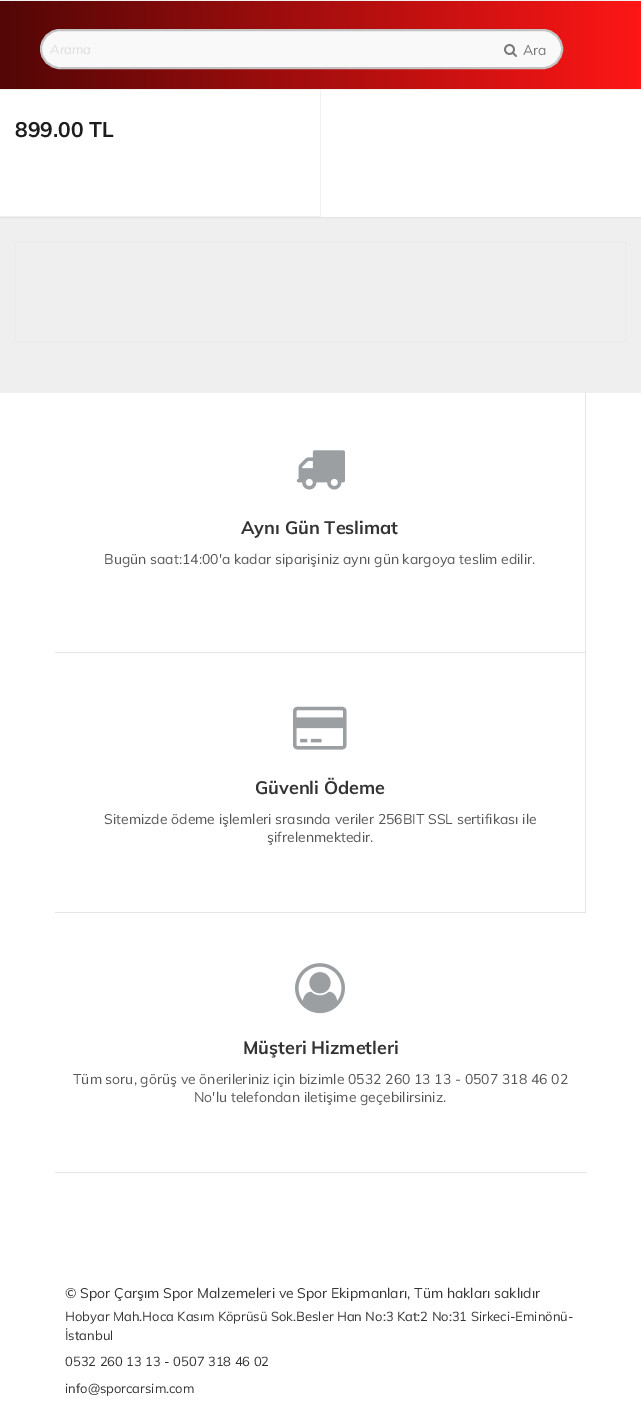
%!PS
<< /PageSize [641 1420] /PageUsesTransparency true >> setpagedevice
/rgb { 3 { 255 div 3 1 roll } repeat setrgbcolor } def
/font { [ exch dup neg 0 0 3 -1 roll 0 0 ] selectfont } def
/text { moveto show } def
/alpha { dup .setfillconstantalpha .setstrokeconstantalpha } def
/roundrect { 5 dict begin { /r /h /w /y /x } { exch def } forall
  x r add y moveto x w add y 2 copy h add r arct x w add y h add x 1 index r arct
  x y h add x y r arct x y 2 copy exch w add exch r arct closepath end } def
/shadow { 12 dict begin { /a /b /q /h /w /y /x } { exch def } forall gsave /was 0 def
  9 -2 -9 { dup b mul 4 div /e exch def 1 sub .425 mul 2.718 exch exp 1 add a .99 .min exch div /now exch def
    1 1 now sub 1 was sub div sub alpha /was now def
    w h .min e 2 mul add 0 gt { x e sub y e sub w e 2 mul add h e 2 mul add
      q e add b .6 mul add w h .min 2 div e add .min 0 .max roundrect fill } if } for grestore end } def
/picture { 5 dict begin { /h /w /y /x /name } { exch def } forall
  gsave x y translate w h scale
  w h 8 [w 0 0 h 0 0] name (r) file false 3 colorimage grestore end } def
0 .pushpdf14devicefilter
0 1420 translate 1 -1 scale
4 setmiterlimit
239 239 239 rgb
0 0 641 1420 rectfill
204 204 204 rgb
0 -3 641 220 0 1 1 shadow
gsave 0 1 moveto 641 0 rlineto 0 88 rlineto -641 0 rlineto closepath clip newpath
<< /ShadingType 2 /ColorSpace /DeviceRGB /Coords [0 45 641 45] /Extend [true true] /Function << /FunctionType 2 /Domain [0 1] /C0 [0.322 0.024 0.024] /C1 [1 0.086 0.086] /N 1 >> >> shfill grestore
241 241 241 rgb
0 0 641 1 rectfill
0 89 641 1 rectfill
250 249 249 rgb
41 30 521 38 19 roundrect gsave fill grestore
195 195 195 rgb
2 setlinewidth
stroke
(img_01.rgb) 504 44 13 13 picture
255 255 255 rgb
0 90 641 127 rectfill
241 241 241 rgb
320 90 1 127 rectfill
0 216 321 1 rectfill
235 235 235 rgb
1 setlinewidth
15.5 242.5 610 99 rectstroke
255 255 255 rgb
0 393 641 1027 rectfill
230 230 230 rgb
585 393 1 520 rectfill
55 652 531 1 rectfill
(img_02.rgb) 296 450 49 40 picture
55 912 531 1 rectfill
(img_03.rgb) 293 706 54 44 picture
55 1172 531 1 rectfill
(img_04.rgb) 295 963 50 51 picture
/Muli-Italic 13 font
221 221 221 rgb
(Arama) 50 54 text
/Muli-Regular 14 font
119 119 119 rgb
(Ara) 523 55 text
/Muli-Bold 21 font
29 29 29 rgb
(899.00 TL) 15 137 text
/Muli-Bold 18 font
51 51 51 rgb
(Aynı Gün Teslimat) 241 534 text
/Muli-Regular 14 font
85 85 85 rgb
(Bugün saat:14:00'a kadar siparişiniz aynı gün kargoya teslim edilir.) 104 564 text
/Muli-Bold 18 font
51 51 51 rgb
(Güvenli Ödeme) 255 794 text
/Muli-Regular 14 font
85 85 85 rgb
(Sitemizde ödeme işlemleri srasında veriler 256BIT SSL sertifikası ile) 104 824 text
(şifrelenmektedir.) 267 842 text
/Muli-Bold 18 font
51 51 51 rgb
(Müşteri Hizmetleri) 243 1054 text
/Muli-Regular 14 font
85 85 85 rgb
(Tüm soru, görüş ve önerileriniz için bizimle 0532 260 13 13 - 0507 318 46 02) 73 1084 text
(No'lu telefondan iletişime geçebilirsiniz.) 194 1102 text
51 51 51 rgb
(© Spor Çarşım Spor Malzemeleri ve Spor Ekipmanları, Tüm hakları saklıdır) 65 1298 text
/Muli-Regular 13 font
(Hobyar Mah.Hoca Kasım Köprüsü Sok.Besler Han No:3 Kat:2 No:31 Sirkeci-Eminönü-) 65 1321 text
(İstanbul) 65 1340 text
(0532 260 13 13 - 0507 318 46 02) 65 1366 text
(info@sporcarsim.com) 65 1393 text
.poppdf14devicefilter showpage
